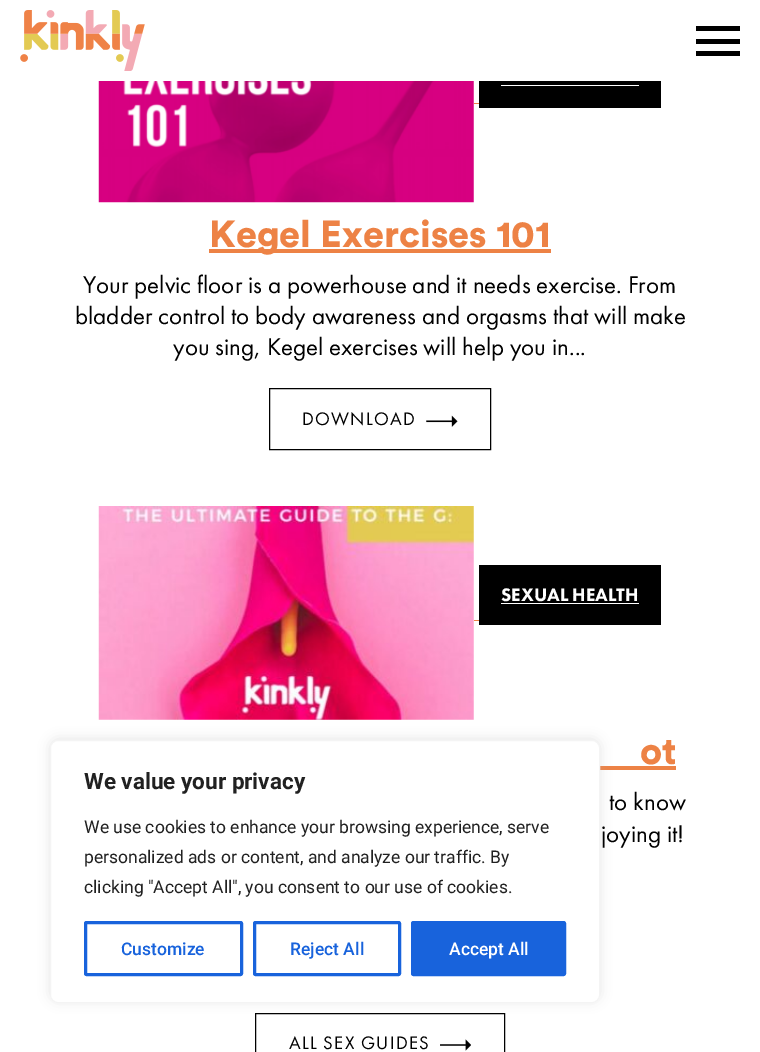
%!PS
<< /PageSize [760 1052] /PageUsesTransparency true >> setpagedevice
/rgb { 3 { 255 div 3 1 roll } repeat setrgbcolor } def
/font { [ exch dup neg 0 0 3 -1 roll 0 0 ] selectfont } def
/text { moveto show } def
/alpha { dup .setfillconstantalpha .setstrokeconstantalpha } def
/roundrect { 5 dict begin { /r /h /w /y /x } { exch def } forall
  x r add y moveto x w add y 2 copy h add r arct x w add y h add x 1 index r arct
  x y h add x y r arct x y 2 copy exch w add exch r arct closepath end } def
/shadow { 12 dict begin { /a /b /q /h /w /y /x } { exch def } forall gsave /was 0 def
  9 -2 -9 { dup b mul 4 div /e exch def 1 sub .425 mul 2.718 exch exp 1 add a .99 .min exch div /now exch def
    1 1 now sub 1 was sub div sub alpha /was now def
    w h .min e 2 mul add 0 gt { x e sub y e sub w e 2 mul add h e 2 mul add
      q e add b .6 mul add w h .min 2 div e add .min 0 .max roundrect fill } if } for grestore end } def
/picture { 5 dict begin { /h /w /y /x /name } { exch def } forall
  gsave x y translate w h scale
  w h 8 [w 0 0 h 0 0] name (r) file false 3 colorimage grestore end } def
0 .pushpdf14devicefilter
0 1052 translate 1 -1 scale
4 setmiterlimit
255 255 255 rgb
0 0 760 1052 rectfill
(img_01.rgb) 20 10 125 61 picture
0 0 0 rgb
696 26 44 5 rectfill
696 39 44 5 rectfill
696 51 44 5 rectfill
(img_02.rgb) 98 81 376 122 picture
237 130 69 rgb
474 103 5 1 rectfill
0 0 0 rgb
479 81 182 27 rectfill
255 255 255 rgb
501 85 138 1 rectfill
237 130 69 rgb
209 249 342 4 rectfill
0 0 0 rgb
269.5 388.5 221 61 rectstroke
(img_03.rgb) 426 415 32 12 picture
(img_04.rgb) 98 506 376 214 picture
479 565 182 60 rectfill
255 255 255 rgb
501 603 138 1 rectfill
237 130 69 rgb
474 620 5 1 rectfill
600 766 76 4 rectfill
0 0 0 rgb
255.5 1013.5 249 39 rectstroke
(img_05.rgb) 440 1039 31 12 picture
172 171 171 rgb
50 739 550 262 8 6 0.3 shadow
255 255 255 rgb
50.5 740.5 549 262 7.5 roundrect gsave fill grestore
244 244 244 rgb
stroke
24 99 220 rgb
3 setlinewidth
85.5 922.5 156 52 1 roundrect stroke
254.5 922.5 145 52 1 roundrect stroke
412.5 922.5 152 52 1 roundrect gsave fill grestore
stroke
/Circular-Black 37.5 font
237 130 69 rgb
(Kegel Exercises 101) 209 247 text
/FuturaPT-Regular 25 font
0 0 0 rgb
(Your pelvic floor is a powerhouse and it needs exercise. From) 83 293 text
(bladder control to body awareness and orgasms that will make) 75 324 text
(you sing, Kegel exercises will help you in...) 173 355 text
/FuturaPT-Regular 18.75 font
302 425 moveto 1.25 0 (DOWNLOAD) ashow
/FuturaPT-Black 18.75 font
255 255 255 rgb
(SEXUAL HEALTH) 501 601 text
/Circular-Black 37.5 font
237 130 69 rgb
(ot) 640 764 text
/FuturaPT-Regular 25 font
0 0 0 rgb
(to know) 609 810 text
(joying it!) 601 842 text
/FuturaPT-Regular 18.75 font
289 1049 moveto 1.25 0 (ALL SEX GUIDES) ashow
/Roboto-Bold 22.5 font
33 33 33 rgb
(We value your privacy) 84 789 text
/Roboto-Regular 17.5 font
(We use cookies to enhance your browsing experience, serve) 84 833 text
(personalized ads or content, and analyze our traffic. By) 84 863 text
(clicking "Accept All", you consent to our use of cookies.) 84 893 text
/Roboto-Medium 17.5 font
24 99 220 rgb
(Customize) 121 955 text
(Reject All) 290 955 text
255 255 255 rgb
(Accept All) 449 955 text
.poppdf14devicefilter showpage
